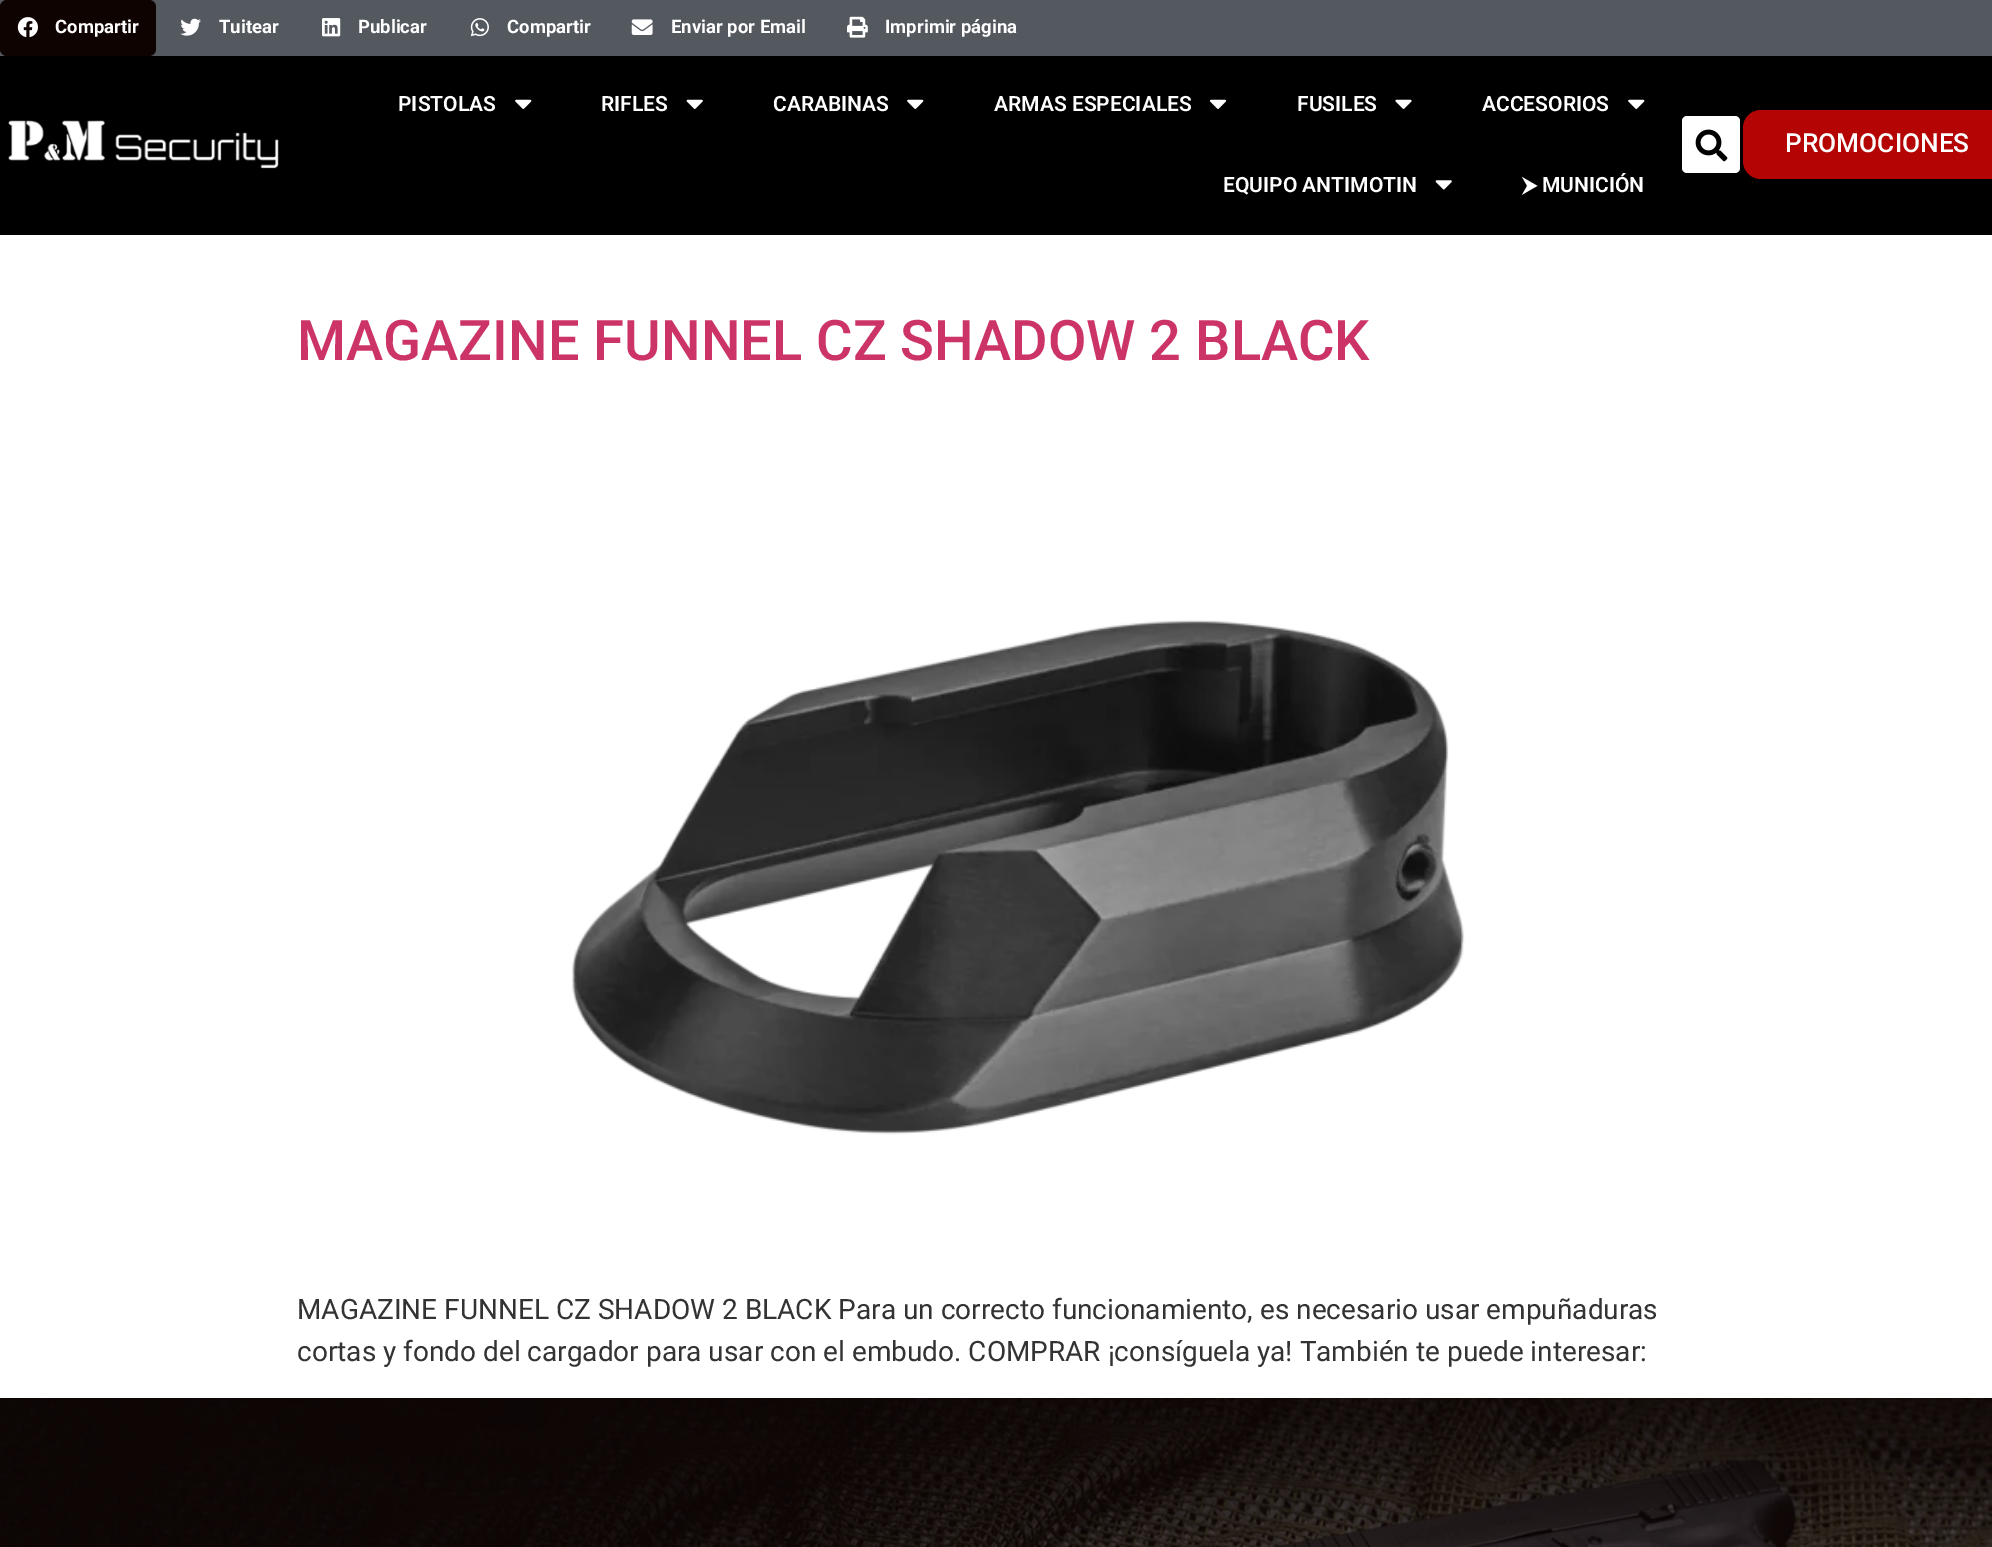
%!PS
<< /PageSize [1992 1547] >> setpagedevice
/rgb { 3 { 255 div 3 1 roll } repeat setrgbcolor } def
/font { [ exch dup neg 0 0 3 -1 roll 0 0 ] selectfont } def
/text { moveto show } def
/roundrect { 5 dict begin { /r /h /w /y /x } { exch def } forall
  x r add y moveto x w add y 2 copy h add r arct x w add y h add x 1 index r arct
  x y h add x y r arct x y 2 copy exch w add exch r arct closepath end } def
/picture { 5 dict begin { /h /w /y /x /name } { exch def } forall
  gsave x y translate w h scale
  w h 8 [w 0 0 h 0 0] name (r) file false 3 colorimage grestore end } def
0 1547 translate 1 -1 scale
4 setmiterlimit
255 255 255 rgb
0 0 1992 1547 rectfill
84 89 95 rgb
0 0 1992 56 rectfill
15 3 2 rgb
0 0 156 56 7 roundrect fill
(img_01.rgb) 17 17 21 21 picture
(img_02.rgb) 180 18 21 18 picture
(img_03.rgb) 322 18 19 19 picture
(img_04.rgb) 470 18 19 19 picture
(img_05.rgb) 631 19 22 16 picture
(img_06.rgb) 847 16 21 22 picture
0 0 0 rgb
0 56 1992 179 rectfill
(img_07.rgb) 8 120 271 49 picture
(img_08.rgb) 515 99 17 10 picture
(img_09.rgb) 686 99 17 10 picture
(img_08.rgb) 907 99 17 10 picture
(img_10.rgb) 1209 99 18 10 picture
(img_11.rgb) 1395 99 17 10 picture
(img_08.rgb) 1628 99 17 10 picture
(img_12.rgb) 1435 180 17 10 picture
255 255 255 rgb
1682 116 58 57 5 roundrect fill
(img_13.rgb) 1695 129 33 33 picture
180 4 4 rgb
1743 110 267 69 18 roundrect fill
(img_14.rgb) 572 620 893 515 picture
(img_15.rgb) 0 1398 1992 149 picture
/Roboto-Bold 18.5 font
255 255 255 rgb
(Compartir) 55 33 text
(Tuitear) 219 33 text
(Publicar) 358 33 text
(Compartir) 507 33 text
(Enviar por Email) 671 33 text
(Imprimir página) 885 33 text
/Roboto-SemiBold 21 font
(PISTOLAS) 398 111 text
(RIFLES) 601 111 text
(CARABINAS) 773 111 text
(ARMAS ESPECIALES) 994 111 text
(FUSILES) 1297 111 text
(ACCESORIOS) 1482 111 text
(EQUIPO ANTIMOTIN) 1223 192 text
/FreeSans-Bold 21 font
(⮞) 1522 192 text
/Roboto-SemiBold 21 font
(MUNICIÓN) 1542 192 text
/Roboto-Medium 26.25 font
(PROMOCIONES) 1785 152 text
/Roboto-Medium 56 font
204 51 102 rgb
(MAGAZINE FUNNEL CZ SHADOW 2 BLACK) 297 360 text
/Roboto-Regular 28 font
51 51 51 rgb
(MAGAZINE FUNNEL CZ SHADOW 2 BLACK Para un correcto funcionamiento, es necesario usar empuñaduras) 297 1319 text
(cortas y fondo del cargador para usar con el embudo. COMPRAR ¡consíguela ya! También te puede interesar:) 297 1361 text
showpage
